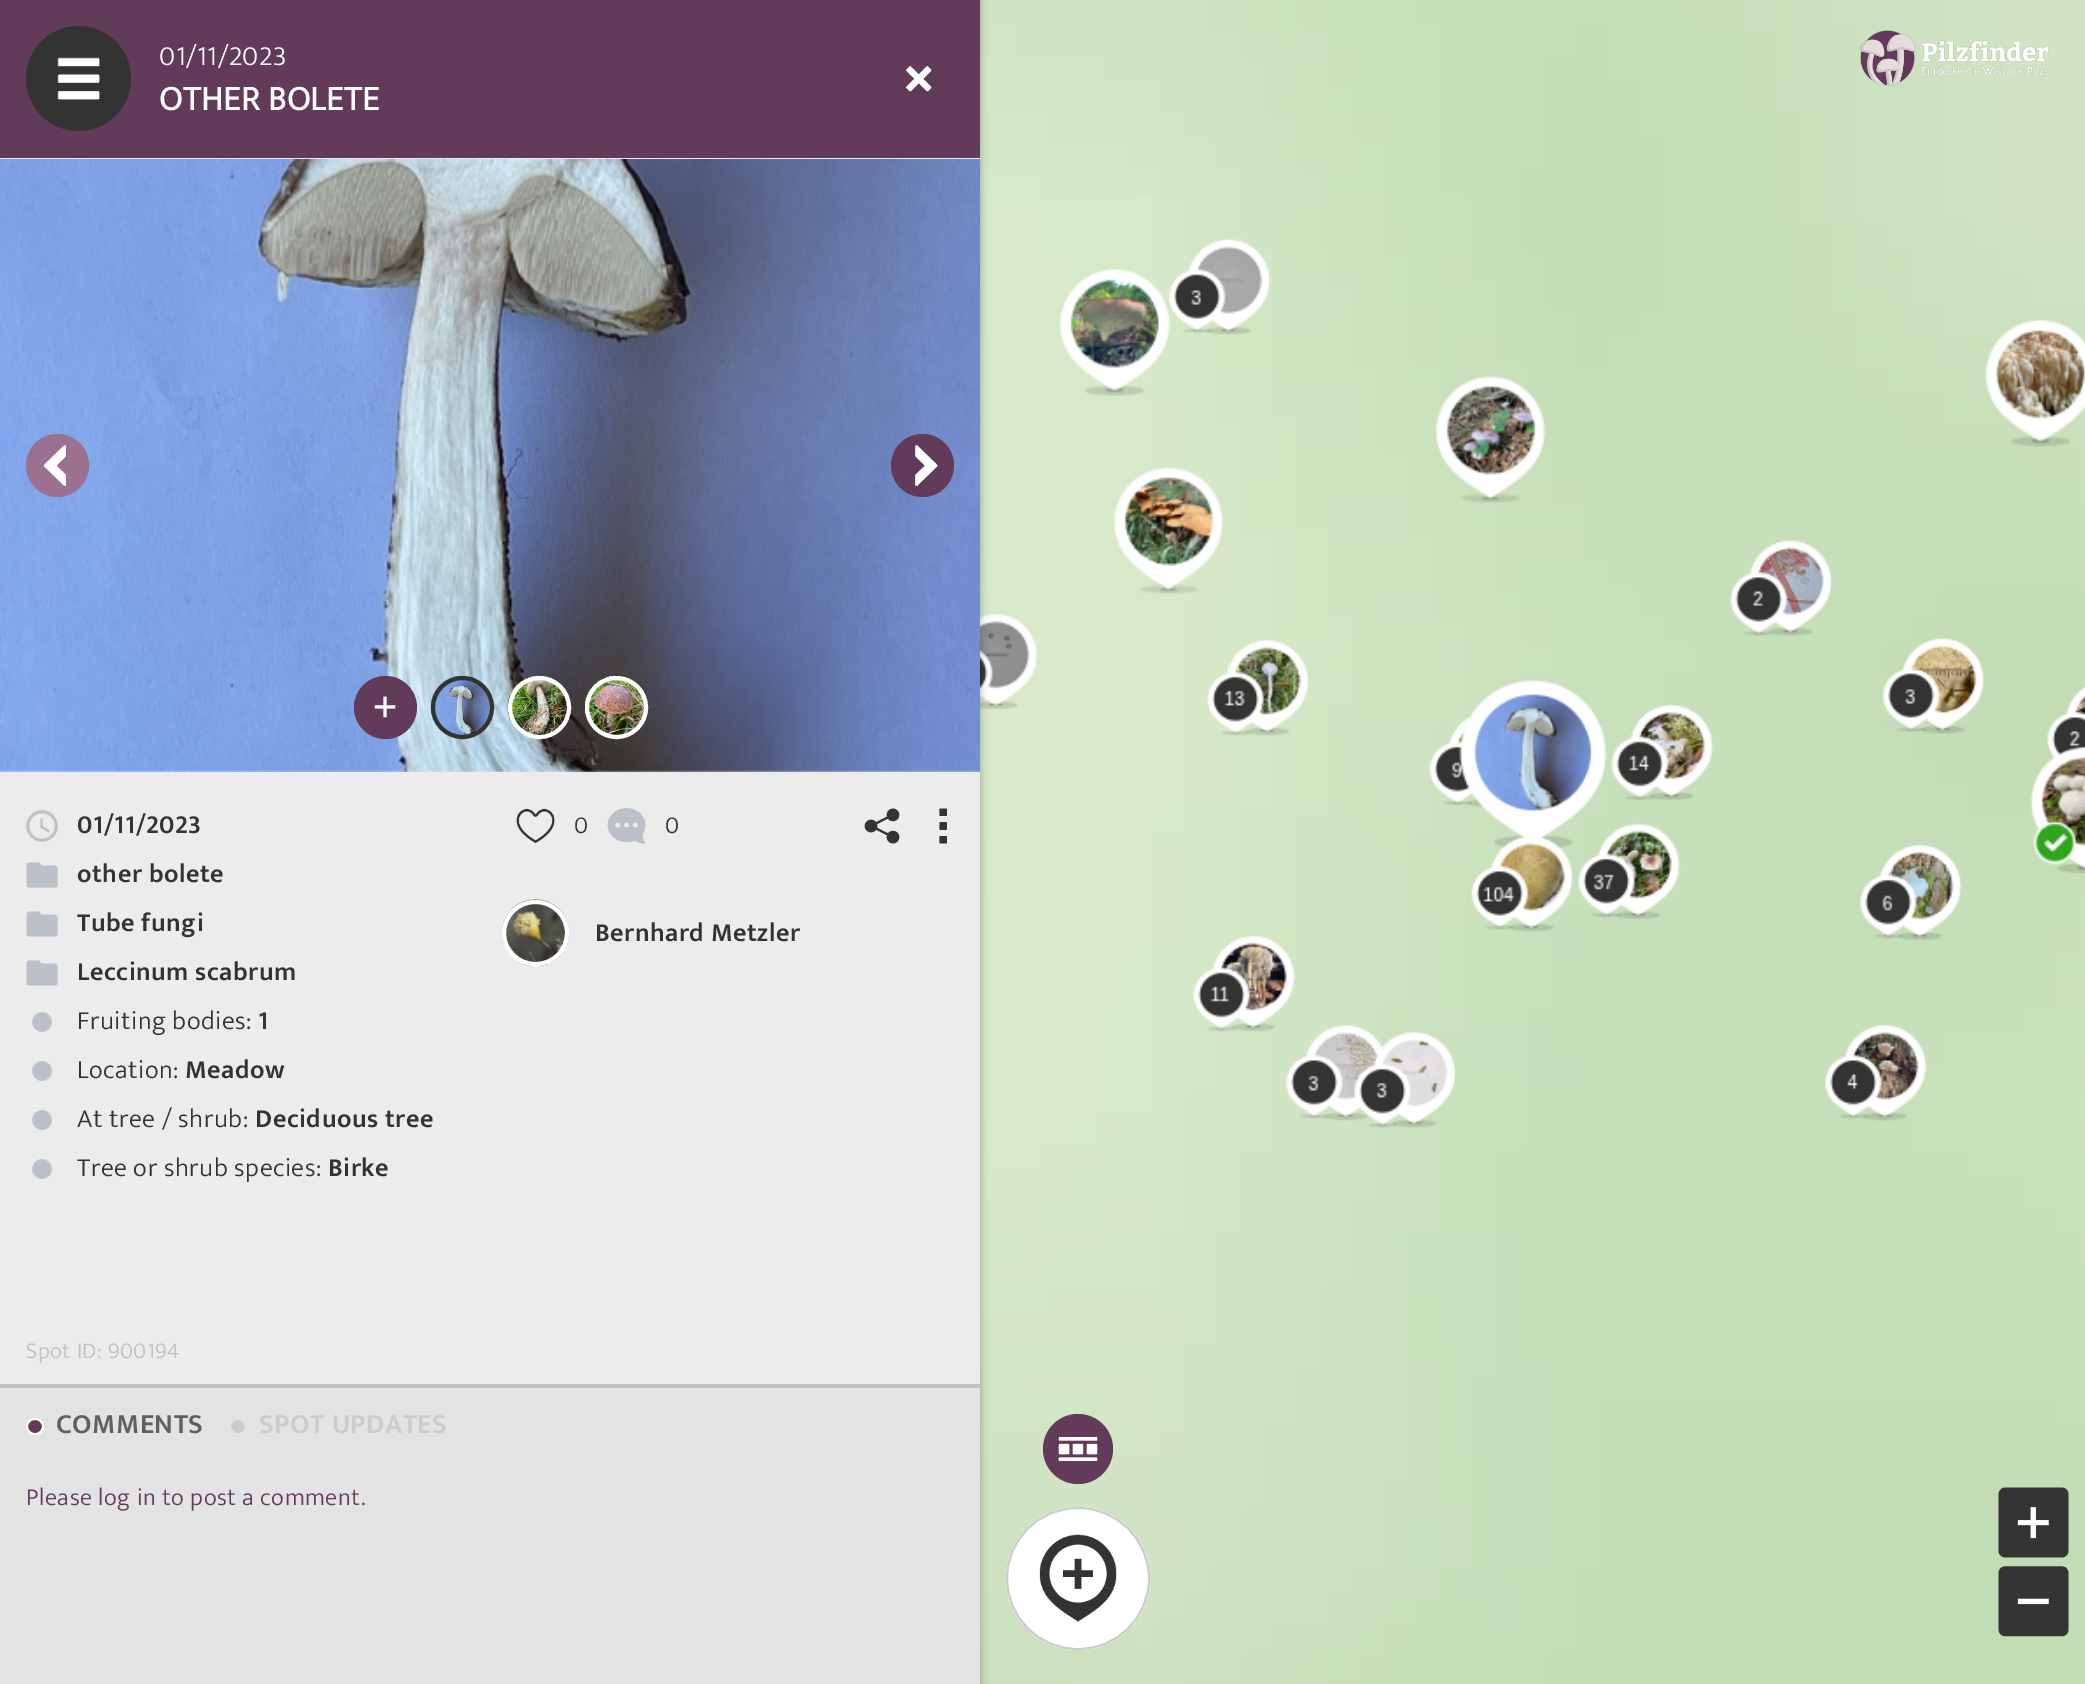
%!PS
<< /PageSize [2085 1684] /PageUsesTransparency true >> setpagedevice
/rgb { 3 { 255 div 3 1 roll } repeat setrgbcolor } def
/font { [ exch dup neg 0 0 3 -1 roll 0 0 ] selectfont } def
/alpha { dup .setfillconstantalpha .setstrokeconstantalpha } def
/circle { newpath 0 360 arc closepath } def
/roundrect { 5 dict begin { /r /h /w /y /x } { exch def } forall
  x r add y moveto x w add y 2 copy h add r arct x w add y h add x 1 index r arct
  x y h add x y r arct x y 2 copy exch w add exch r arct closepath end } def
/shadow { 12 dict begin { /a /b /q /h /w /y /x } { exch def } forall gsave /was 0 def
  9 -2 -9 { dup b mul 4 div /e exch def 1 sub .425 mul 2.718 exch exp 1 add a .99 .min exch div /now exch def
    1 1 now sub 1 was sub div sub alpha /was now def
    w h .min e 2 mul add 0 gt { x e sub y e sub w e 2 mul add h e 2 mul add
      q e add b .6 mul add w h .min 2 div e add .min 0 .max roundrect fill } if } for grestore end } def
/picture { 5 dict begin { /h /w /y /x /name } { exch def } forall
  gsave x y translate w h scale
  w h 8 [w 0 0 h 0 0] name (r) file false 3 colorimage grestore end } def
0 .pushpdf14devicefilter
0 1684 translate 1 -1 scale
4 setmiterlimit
255 255 255 rgb
0 0 2085 1684 rectfill
(img_03.rgb) 980 0 1105 1684 picture
0 0 0 rgb
0 0 980 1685 0 4.5 0.3 shadow
99 59 90 rgb
0 0 980 158 rectfill
51 52 50 rgb
78.5 78.5 52.5 circle fill
(img_01.rgb) 57 57 43 43 picture
(img_02.rgb) 906 66 26 26 picture
(img_04.rgb) 1998 1487 71 71 picture
(img_05.rgb) 1998 1566 71 71 picture
(img_06.rgb) 1859 30 191 56 picture
236 236 236 rgb
0 158 980 1 rectfill
227 227 227 rgb
0 1388 980 296 rectfill
236 236 236 rgb
0 770 980 614 rectfill
(img_13.rgb) 0 159 980 613 picture
155 112 144 rgb
57.5 465.5 31.5 circle fill
(img_07.rgb) 43 445 23 41 picture
99 59 90 rgb
922.5 465.5 31.5 circle fill
(img_08.rgb) 915 445 23 41 picture
385.5 707.5 31.5 circle fill
(img_09.rgb) 374 696 22 22 picture
(img_10.rgb) 430 675 64 64 picture
51 52 50 rgb
4 setlinewidth
462.5 707.5 29.5 circle stroke
(img_11.rgb) 507 675 64 64 picture
255 255 255 rgb
539.5 707.5 29.5 circle stroke
(img_12.rgb) 584 675 64 64 picture
616.5 707.5 29.5 circle stroke
(img_14.rgb) 26 810 32 32 picture
(img_15.rgb) 26 862 32 26 picture
(img_15.rgb) 26 911 32 26 picture
(img_15.rgb) 26 960 32 26 picture
(img_16.rgb) 32 1012 20 20 picture
(img_16.rgb) 32 1061 20 20 picture
(img_16.rgb) 32 1110 20 20 picture
(img_16.rgb) 32 1159 20 20 picture
(img_17.rgb) 516 808 39 36 picture
(img_18.rgb) 607 808 39 36 picture
(img_19.rgb) 864 808 36 36 picture
(img_20.rgb) 939 808 8 36 picture
(img_21.rgb) 502 899 68 67 picture
504 902 63 62 31 roundrect stroke
194 194 194 rgb
0 1384 980 4 rectfill
99 59 90 rgb
27 1419 16 15 7.5 roundrect gsave fill grestore
255 255 255 rgb
2 setlinewidth
stroke
204 204 204 rgb
230 1419 16 15 7.5 roundrect gsave fill grestore
227 227 227 rgb
stroke
99 59 90 rgb
1078 1449 35 circle fill
(img_22.rgb) 1058 1437 40 24 picture
255 255 255 rgb
1006 1507 144 143 71.5 roundrect fill
(img_23.rgb) 1039 1534 78 88 picture
204 204 204 rgb
1007 1508 142 141 70.5 roundrect stroke
/EkMukta-Light 28 font
255 255 255 rgb
159 65 moveto 0.5 0 (01/11/2023) ashow
/EkMukta-Bold 35 font
159 110 moveto 0.5 0 (OTHER BOLETE) ashow
/EkMukta-SemiBold 26.25 font
51 52 50 rgb
77 833 moveto 0.5 0 (01/11/2023) ashow
77 882 moveto 0.5 0 (other bolete) ashow
77 931 moveto 0.5 0 (Tube fungi) ashow
77 980 moveto 0.5 0 (Leccinum scabrum) ashow
/EkMukta-Light 26.25 font
77 1029 moveto 0.5 0 (Fruiting bodies:) ashow
/EkMukta-SemiBold 26.25 font
258 1029 moveto 0.5 0 (1) ashow
/EkMukta-Light 26.25 font
77 1078 moveto 0.5 0 (Location:) ashow
/EkMukta-SemiBold 26.25 font
185 1078 moveto 0.5 0 (Meadow) ashow
/EkMukta-Light 26.25 font
77 1127 moveto 0.5 0 (At tree / shrub:) ashow
/EkMukta-SemiBold 26.25 font
255 1127 moveto 0.5 0 (Deciduous tree) ashow
/EkMukta-Light 26.25 font
77 1176 moveto 0.5 0 (Tree or shrub species:) ashow
/EkMukta-SemiBold 26.25 font
328 1176 moveto 0.5 0 (Birke) ashow
/EkMukta-Light 24.5 font
574 833 moveto 0.5 0 (0) ashow
665 833 moveto 0.5 0 (0) ashow
/EkMukta-SemiBold 26.25 font
595 941 moveto 0.5 0 (Bernhard Metzler) ashow
/EkMukta-Light 22.75 font
187 193 199 rgb
26 1358 moveto 0.5 0 (Spot ID: 900194) ashow
/EkMukta-SemiBold 28 font
91 98 95 rgb
56 1433 moveto 0.5 0 (COMMENTS) ashow
204 204 204 rgb
259 1433 moveto 0.5 0 (SPOT UPDATES) ashow
/EkMukta-Light 24.5 font
99 59 90 rgb
26 1505 moveto 0.5 0 (Please log in to post a comment.) ashow
.poppdf14devicefilter showpage
